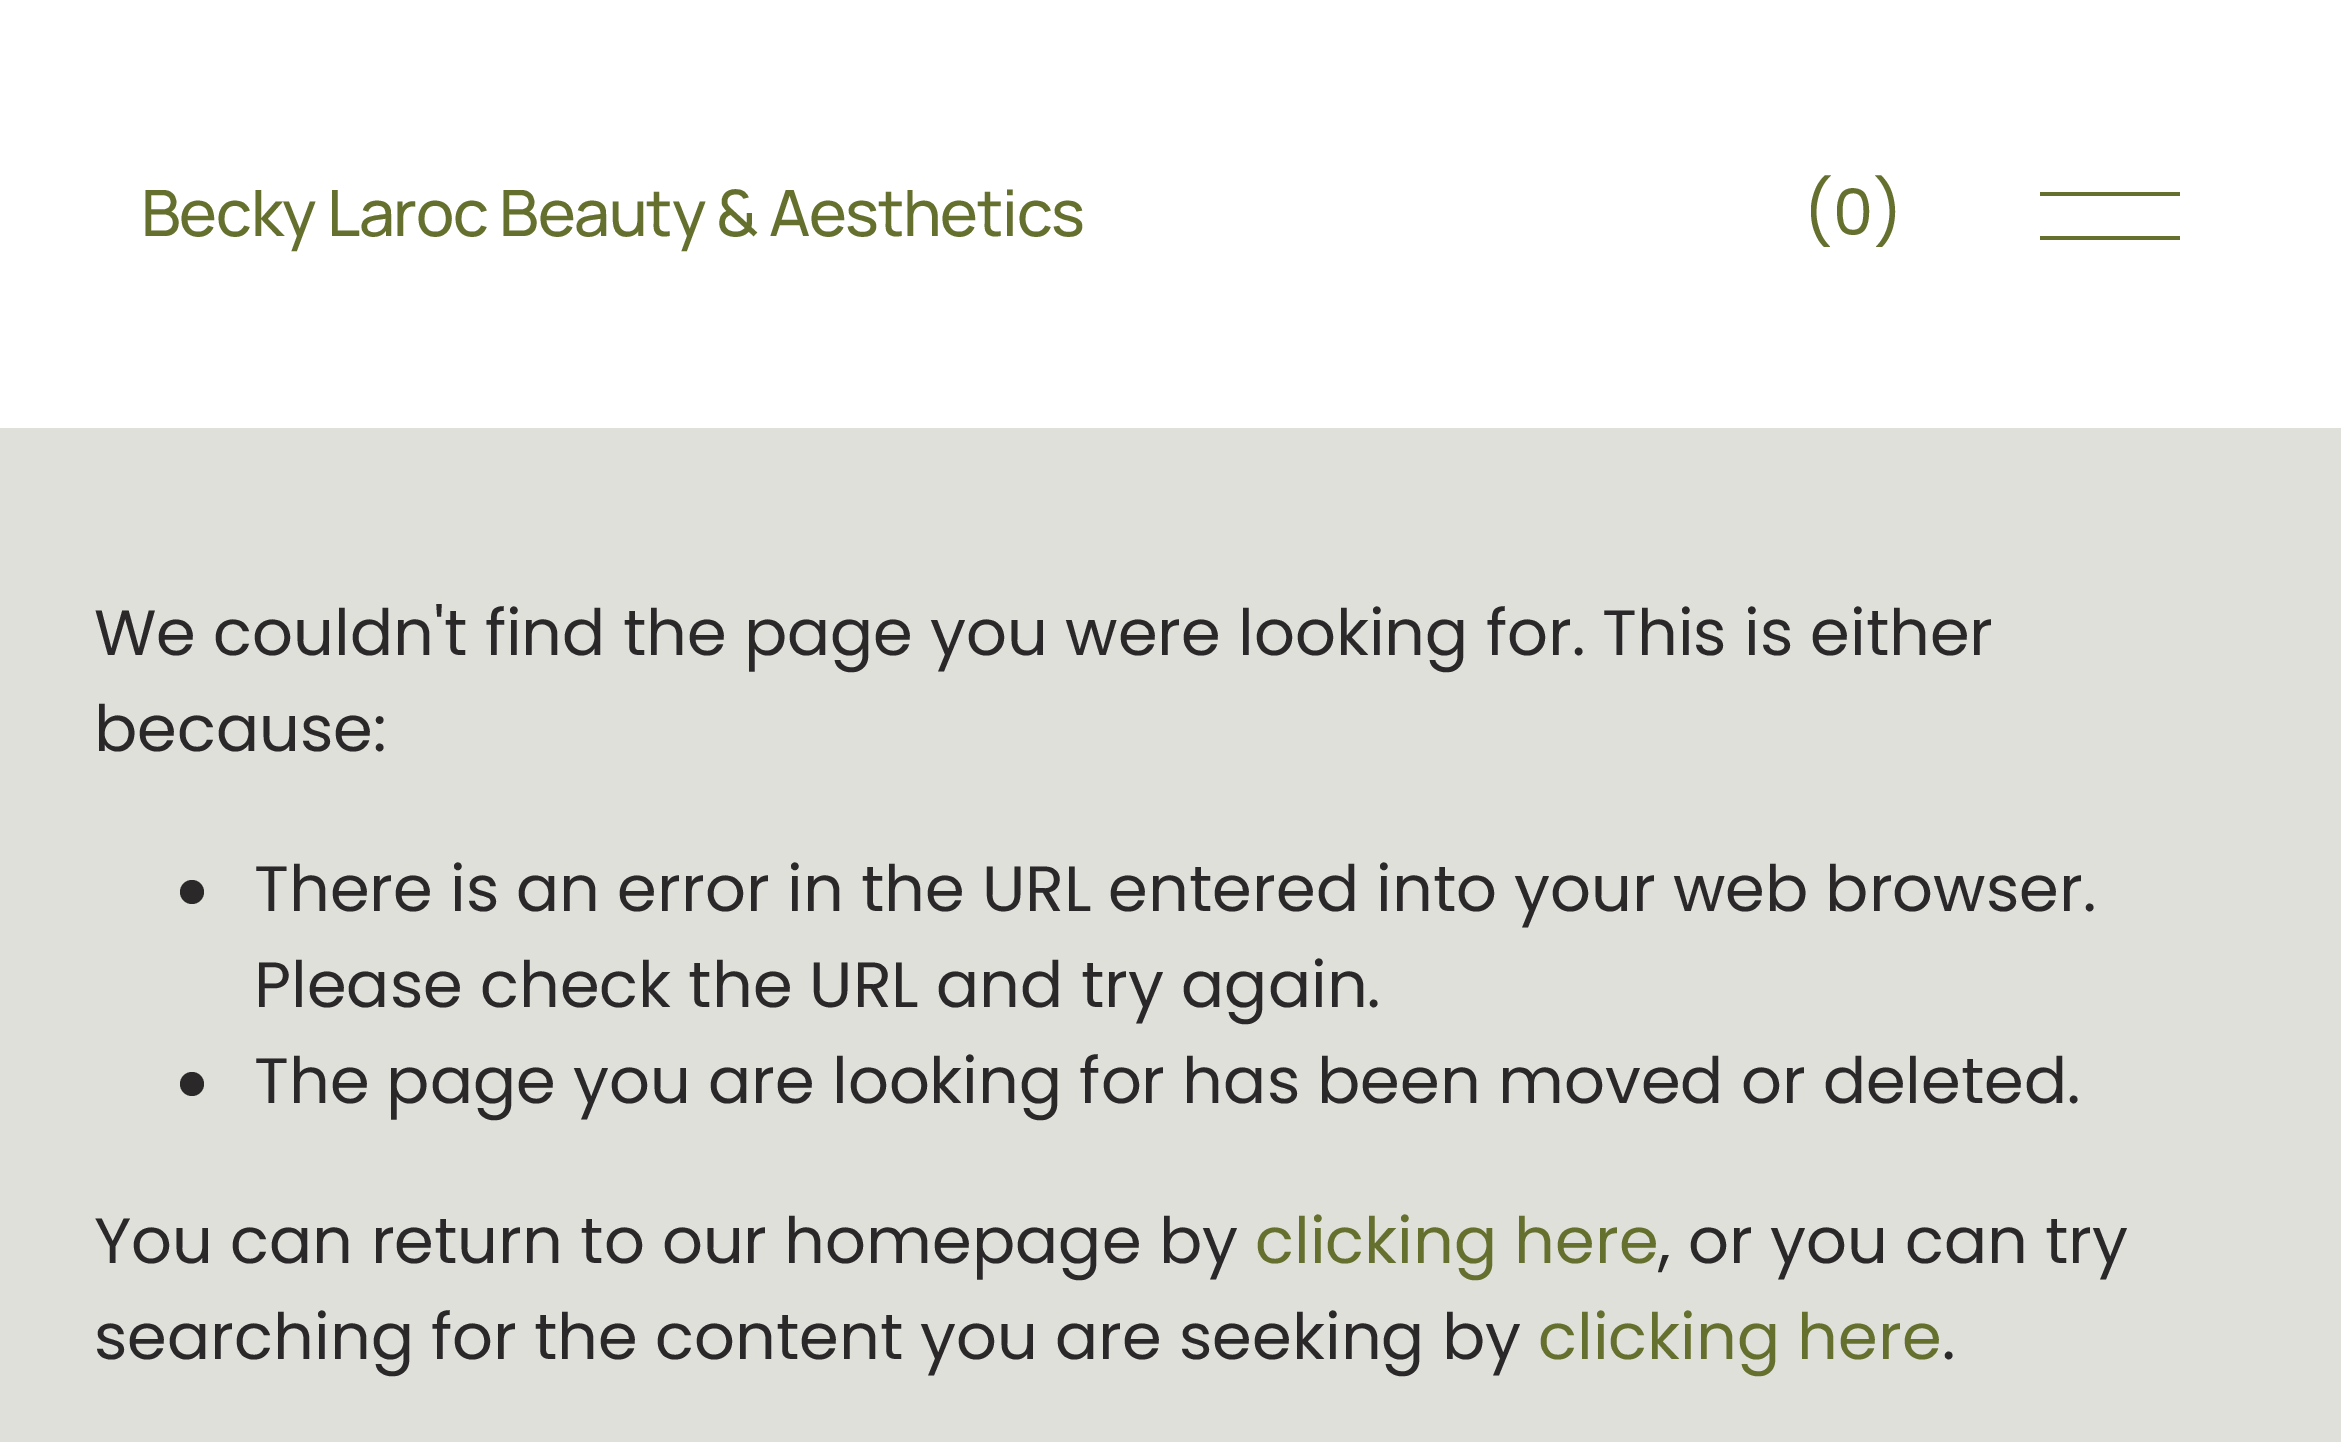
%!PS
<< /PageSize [2341 1442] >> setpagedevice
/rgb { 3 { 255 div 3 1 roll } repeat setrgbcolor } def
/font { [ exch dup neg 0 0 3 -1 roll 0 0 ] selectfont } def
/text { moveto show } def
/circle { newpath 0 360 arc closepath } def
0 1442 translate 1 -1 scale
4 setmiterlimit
224 224 219 rgb
0 0 2341 1442 rectfill
255 255 255 rgb
0 0 2341 428 rectfill
102 112 46 rgb
2040 192 140 4 rectfill
2040 236 140 4 rectfill
42 40 41 rgb
192 892 12 circle fill
192 1084 12 circle fill
/Manrope-Medium 64 font
102 112 46 rgb
141 236 moveto -1.25 0 (Becky Laroc Beauty & Aesthetics) ashow
/Poppins-Regular 64 font
(\(0\)) 1804 235 text
42 40 41 rgb
(We couldn't find the page you were looking for. This is either) 94 655 text
(because:) 94 751 text
(There is an error in the URL entered into your web browser.) 254 911 text
(Please check the URL and try again.) 254 1007 text
(The page you are looking for has been moved or deleted.) 254 1103 text
(You can return to our homepage by) 94 1263 text
102 112 46 rgb
(clicking here) 1255 1263 text
42 40 41 rgb
(, or you can try) 1658 1263 text
(searching for the content you are seeking by) 94 1359 text
102 112 46 rgb
(clicking here) 1538 1359 text
42 40 41 rgb
(.) 1942 1359 text
showpage
